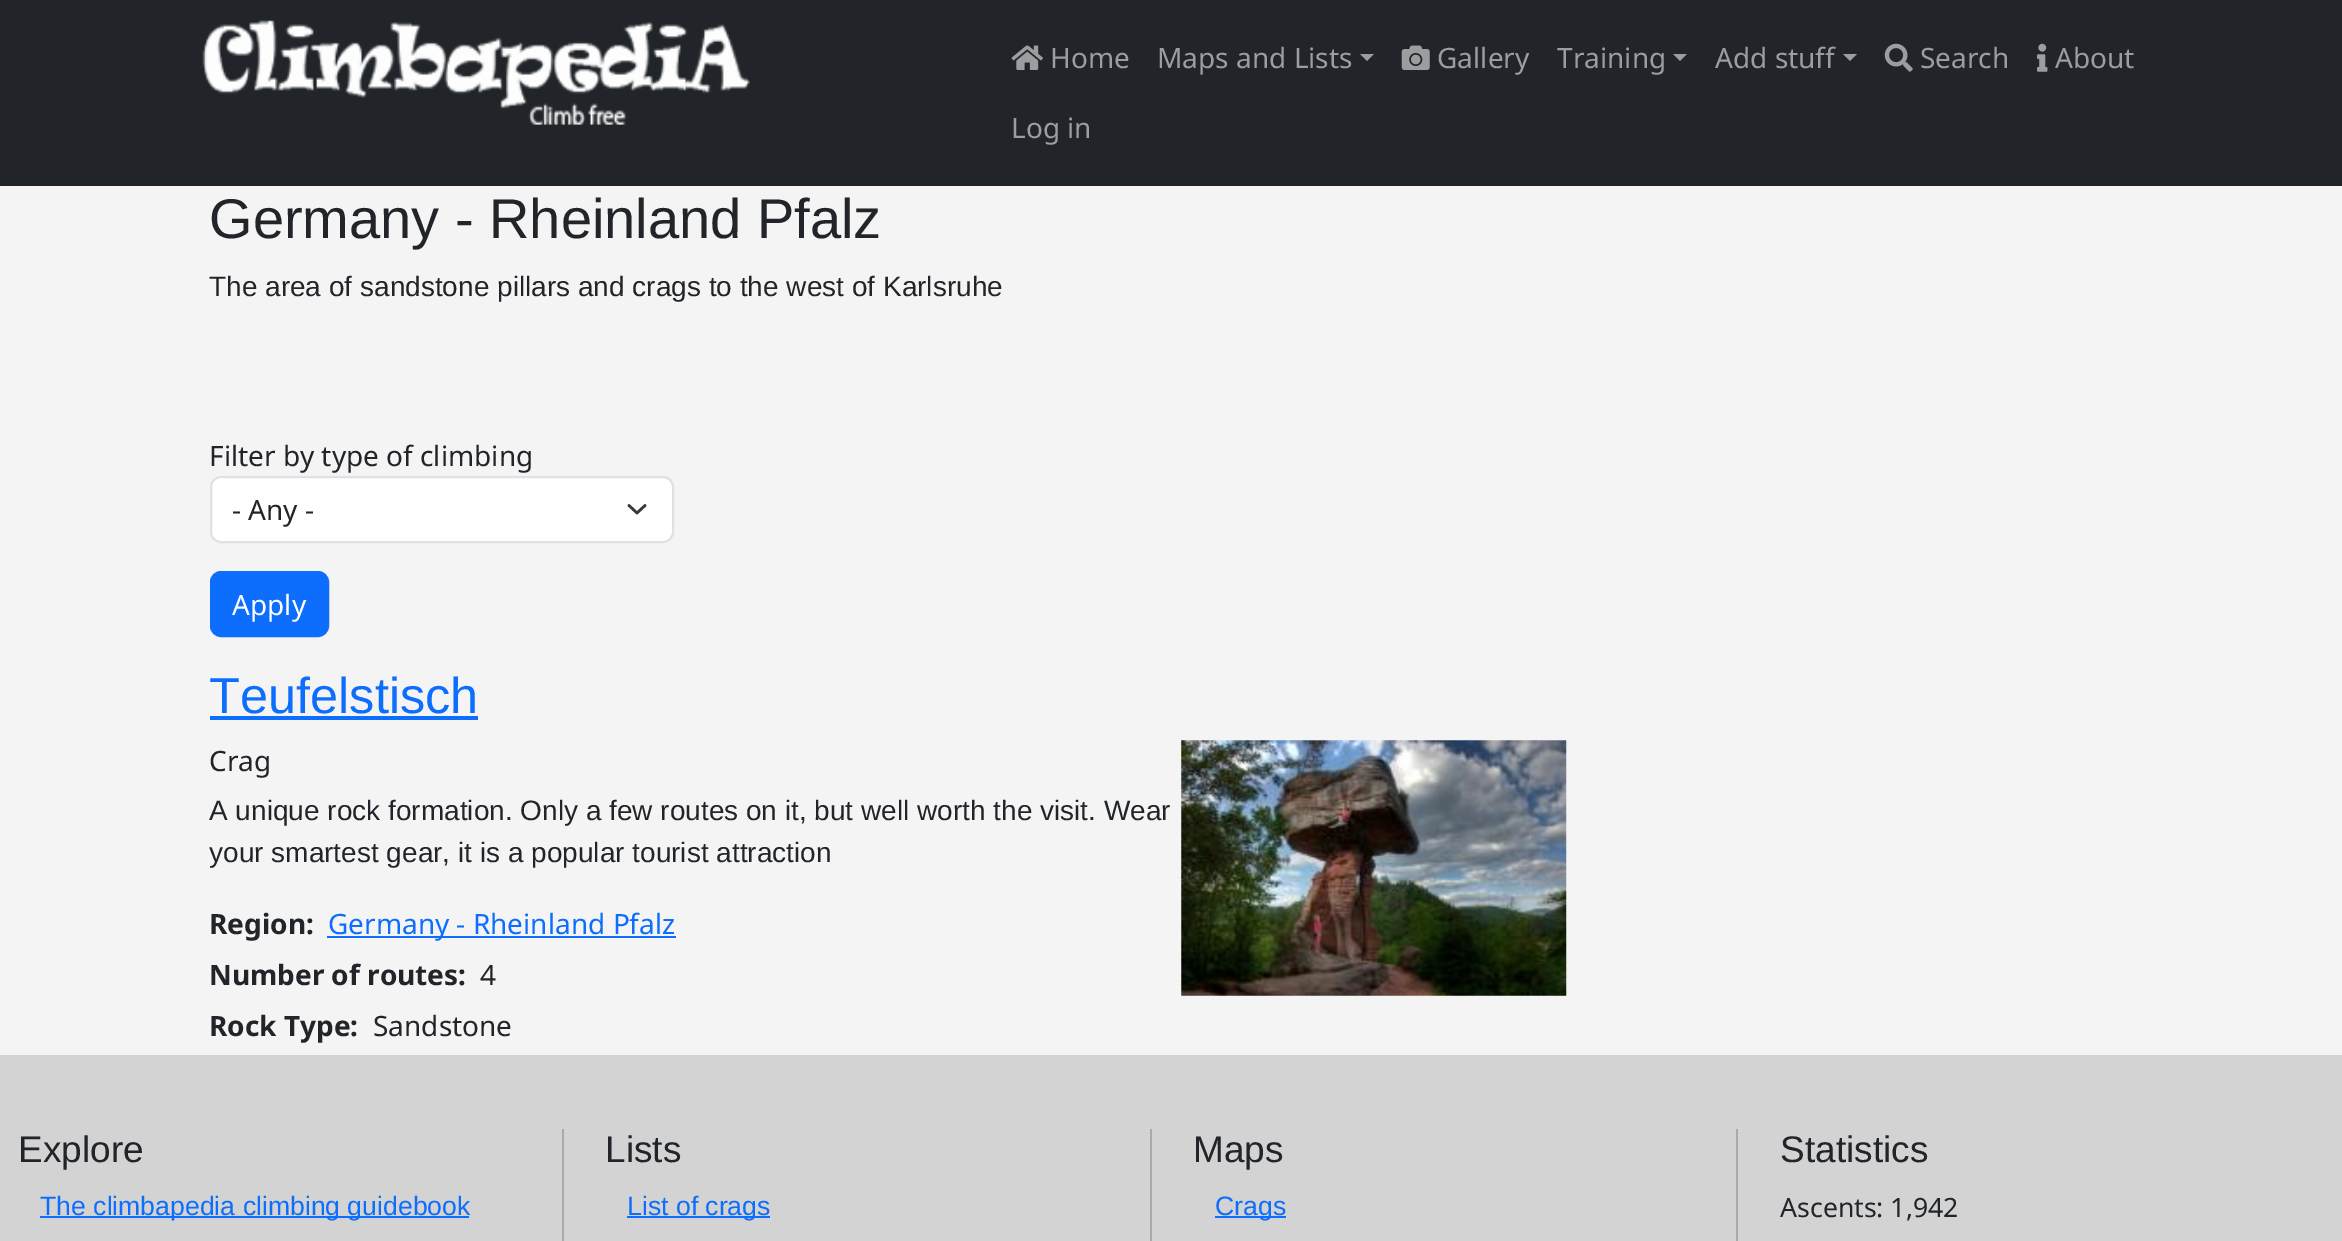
%!PS
<< /PageSize [2342 1241] >> setpagedevice
/rgb { 3 { 255 div 3 1 roll } repeat setrgbcolor } def
/font { [ exch dup neg 0 0 3 -1 roll 0 0 ] selectfont } def
/text { moveto show } def
/roundrect { 5 dict begin { /r /h /w /y /x } { exch def } forall
  x r add y moveto x w add y 2 copy h add r arct x w add y h add x 1 index r arct
  x y h add x y r arct x y 2 copy exch w add exch r arct closepath end } def
/picture { 5 dict begin { /h /w /y /x /name } { exch def } forall
  gsave x y translate w h scale
  w h 8 [w 0 0 h 0 0] name (r) file false 3 colorimage grestore end } def
0 1241 translate 1 -1 scale
4 setmiterlimit
244 244 244 rgb
0 0 2342 1241 rectfill
33 37 41 rgb
0 0 2342 186 rectfill
(img_01.rgb) 202 20 548 105 picture
(img_02.rgb) 1011 45 32 25 picture
155 157 159 rgb
1360 54 moveto 14 0 rlineto -7 7 rlineto closepath fill
(img_03.rgb) 1401 45 29 25 picture
1673 54 moveto 14 0 rlineto -7 7 rlineto closepath fill
1843 54 moveto 14 0 rlineto -7 7 rlineto closepath fill
(img_04.rgb) 1884 43 29 29 picture
(img_05.rgb) 2037 43 11 29 picture
255 255 255 rgb
212 478 460 63 9 roundrect fill
52 58 64 rgb
2.6 setlinewidth
1 setlinecap
1 setlinejoin
629 505.5 moveto 8 7.5 rlineto 8 -7.5 rlineto stroke
222 226 230 rgb
2 setlinewidth
0 setlinecap
0 setlinejoin
211 477 462 65 10 roundrect stroke
13 110 253 rgb
211 572 117 64 10 roundrect gsave fill grestore
stroke
210 716 268 4 rectfill
327 936 349 2 rectfill
(img_06.rgb) 1181 740 386 256 picture
211 211 211 rgb
0 1055 2342 186 rectfill
169 169 169 rgb
562 1129 2 112 rectfill
13 110 253 rgb
40 1216 429 2 rectfill
169 169 169 rgb
1150 1129 2 112 rectfill
13 110 253 rgb
627 1216 143 2 rectfill
169 169 169 rgb
1736 1129 2 112 rectfill
13 110 253 rgb
1215 1216 71 2 rectfill
/NotoSans-Regular 28 font
155 157 159 rgb
(Home) 1050 68 text
(Maps and Lists) 1157 68 text
(Gallery) 1437 68 text
(Training) 1557 68 text
(Add stuff) 1715 68 text
(Search) 1920 68 text
(About) 2055 68 text
(Log in) 1011 138 text
/LiberationSans-Regular 56 font
33 37 41 rgb
(Germany - Rheinland Pfalz) 209 238 text
/LiberationSans-Regular 28 font
(The area of sandstone pillars and crags to the west of Karlsruhe) 209 296 text
/NotoSans-Regular 28 font
(Filter by type of climbing) 209 466 text
(- Any -) 232 520 text
255 255 255 rgb
(Apply) 232 615 text
/LiberationSans-Regular 50.5 font
13 110 253 rgb
(Teufelstisch) 209 713 text
/NotoSans-Regular 28 font
33 37 41 rgb
(Crag) 209 771 text
/LiberationSans-Regular 28 font
(A unique rock formation. Only a few routes on it, but well worth the visit. Wear) 209 820 text
(your smartest gear, it is a popular tourist attraction) 209 862 text
/NotoSans-Bold 28 font
(Region:) 209 934 text
/NotoSans-Regular 28 font
13 110 253 rgb
(Germany - Rheinland Pfalz) 328 934 text
/NotoSans-Bold 28 font
33 37 41 rgb
(Number of routes:) 209 985 text
/NotoSans-Regular 28 font
(4) 480 985 text
/NotoSans-Bold 28 font
(Rock Type:) 209 1036 text
/NotoSans-Regular 28 font
(Sandstone) 373 1036 text
/LiberationSans-Regular 37 font
(Explore) 18 1162 text
/LiberationSans-Regular 26.6 font
13 110 253 rgb
(The climbapedia climbing guidebook) 40 1215 text
/LiberationSans-Regular 37 font
33 37 41 rgb
(Lists) 605 1162 text
/LiberationSans-Regular 26.6 font
13 110 253 rgb
(List of crags) 627 1215 text
/LiberationSans-Regular 37 font
33 37 41 rgb
(Maps) 1193 1162 text
/LiberationSans-Regular 26.6 font
13 110 253 rgb
(Crags) 1215 1215 text
/LiberationSans-Regular 37 font
33 37 41 rgb
(Statistics) 1780 1162 text
/NotoSans-Regular 26.6 font
(Ascents: 1,942) 1780 1217 text
showpage
